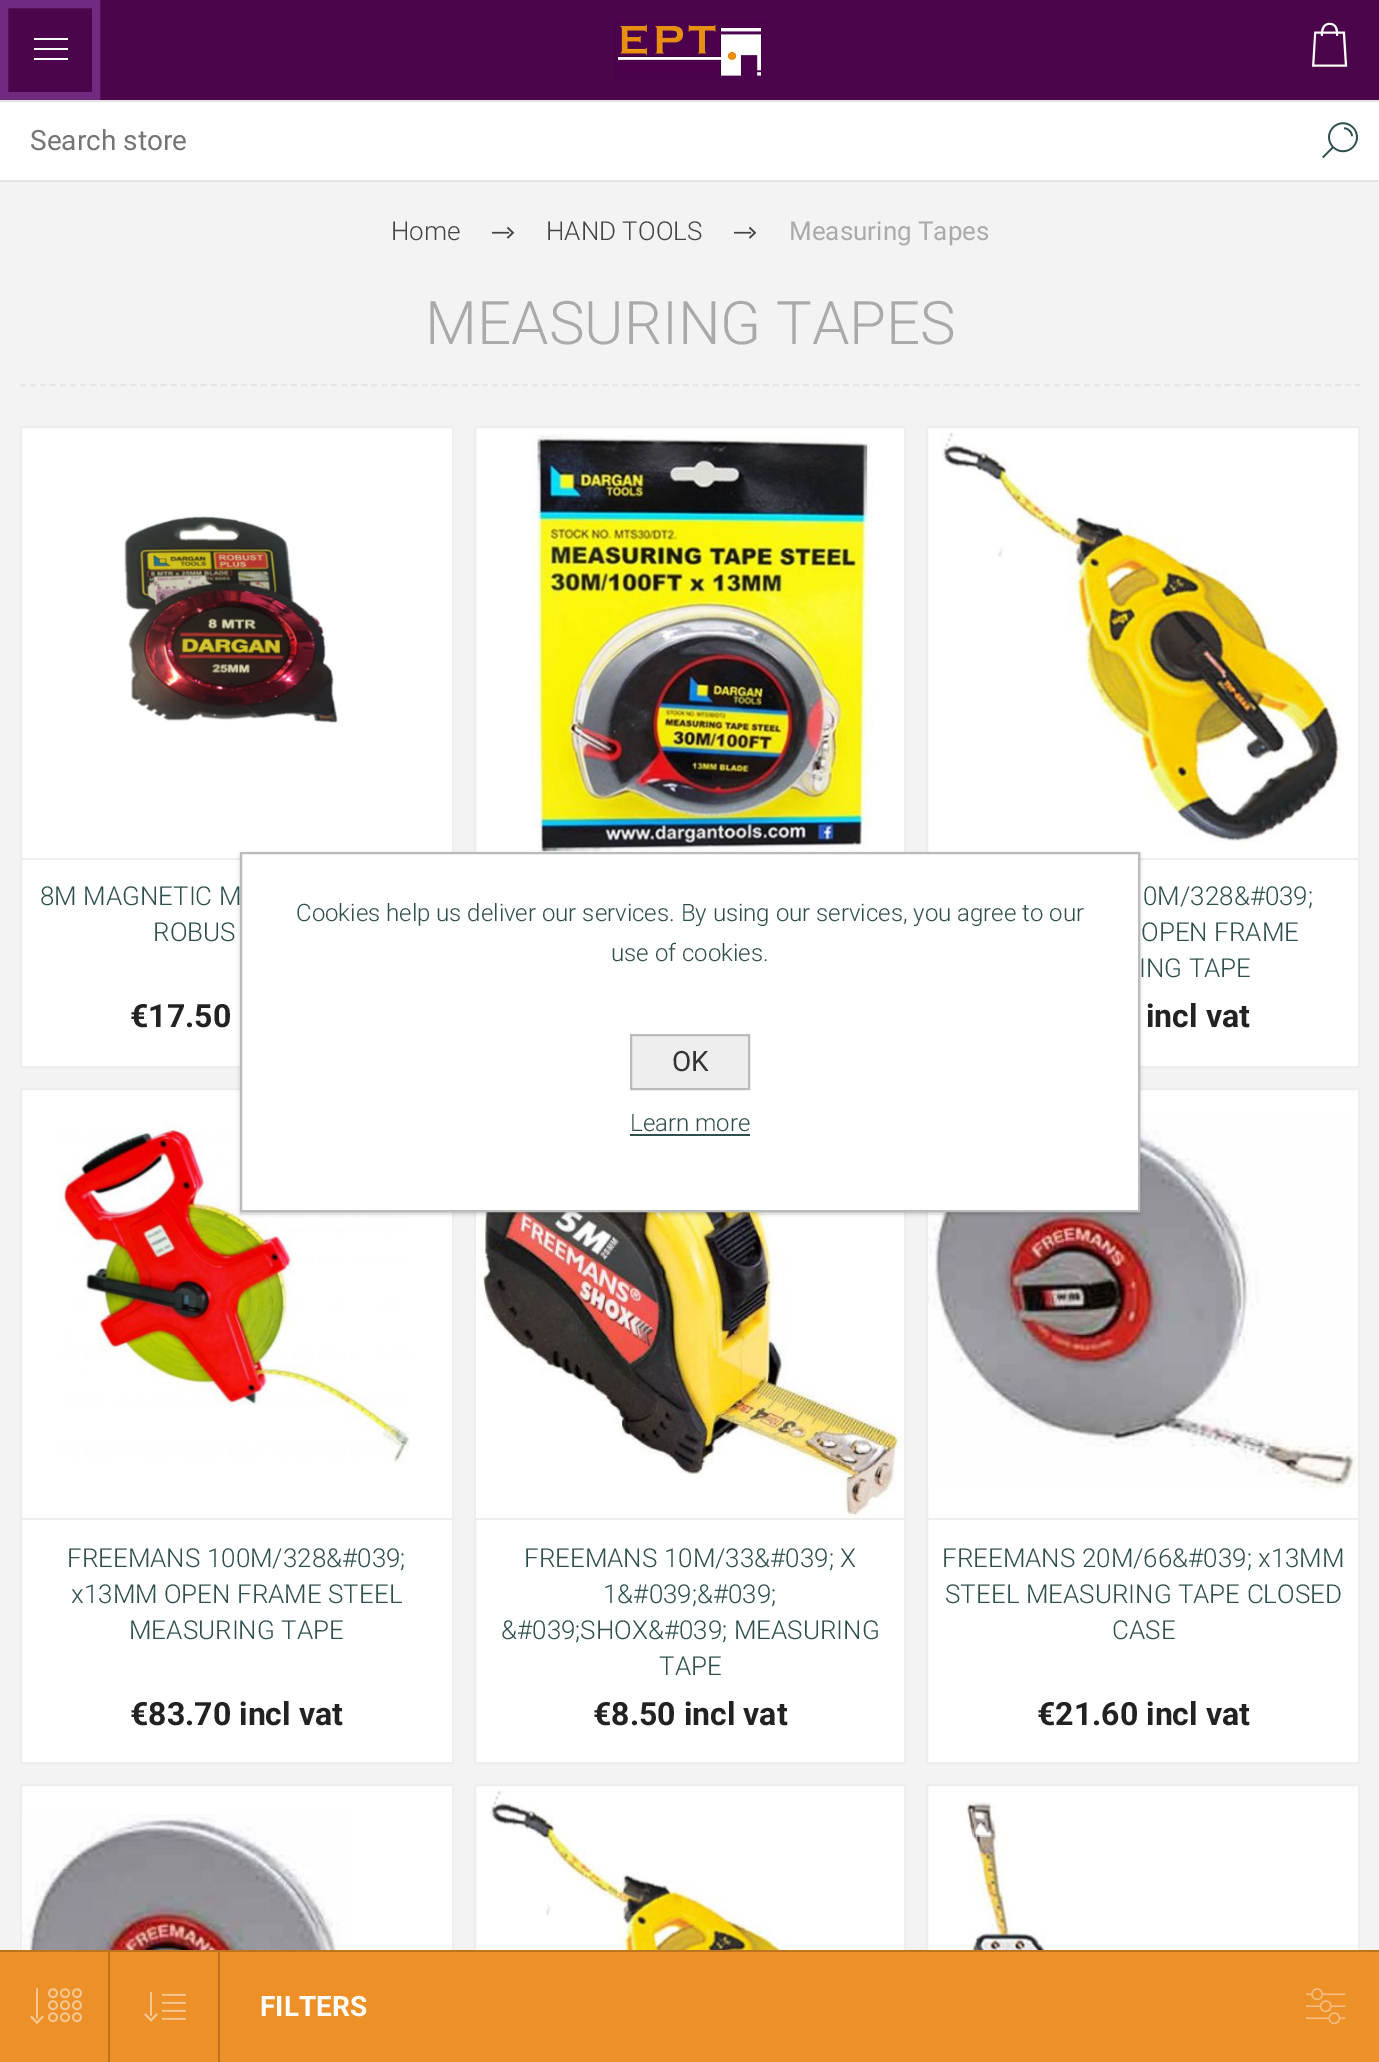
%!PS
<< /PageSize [1379 2062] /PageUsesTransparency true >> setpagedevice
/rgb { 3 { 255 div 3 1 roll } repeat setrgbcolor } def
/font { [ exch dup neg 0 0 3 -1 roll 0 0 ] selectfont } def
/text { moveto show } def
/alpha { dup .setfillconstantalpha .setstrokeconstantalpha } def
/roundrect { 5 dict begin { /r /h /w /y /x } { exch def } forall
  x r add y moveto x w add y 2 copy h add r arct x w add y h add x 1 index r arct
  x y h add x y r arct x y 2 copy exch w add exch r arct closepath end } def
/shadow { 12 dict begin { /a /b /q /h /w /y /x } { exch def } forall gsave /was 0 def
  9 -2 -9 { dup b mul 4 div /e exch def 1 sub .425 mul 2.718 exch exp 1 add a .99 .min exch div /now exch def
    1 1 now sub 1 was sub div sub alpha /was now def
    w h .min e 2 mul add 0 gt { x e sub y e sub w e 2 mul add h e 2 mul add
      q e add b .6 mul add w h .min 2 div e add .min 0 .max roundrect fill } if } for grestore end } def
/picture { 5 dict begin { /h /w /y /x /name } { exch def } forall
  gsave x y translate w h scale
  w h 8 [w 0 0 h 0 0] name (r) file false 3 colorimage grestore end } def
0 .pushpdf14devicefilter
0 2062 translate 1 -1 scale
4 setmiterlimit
243 243 243 rgb
0 0 1379 2062 rectfill
75 6 75 rgb
8 0 1371 100 rectfill
112 43 129 rgb
8 setlinewidth
4 4 92 92 rectstroke
255 255 255 rgb
34 38 34 2 rectfill
34 48 34 2 rectfill
34 58 34 2 rectfill
(img_01.rgb) 1312 22 36 45 picture
227 227 227 rgb
0 100 1379 2 rectfill
(img_02.rgb) 614 20 152 60 picture
255 255 255 rgb
0 102 1379 78 rectfill
227 227 227 rgb
0 180 1379 2 rectfill
(img_03.rgb) 1322 122 36 37 picture
(img_04.rgb) 492 226 23 13 picture
(img_04.rgb) 734 226 23 13 picture
230 230 230 rgb
2 setlinewidth
[6 4.04] 0 setdash
20 385 moveto 1340 0 rlineto stroke
255 255 255 rgb
21 427 moveto 432 0 rlineto 0 640 rlineto -432 0 rlineto closepath gsave fill grestore
238 238 238 rgb
[] 0 setdash
stroke
22 858 218 2 rectfill
(img_05.rgb) 124 516 214 207 picture
255 255 255 rgb
476 428 428 424 rectfill
238 238 238 rgb
475 427 430 640 rectstroke
(img_06.rgb) 531 434 342 418 picture
255 255 255 rgb
927 427 moveto 432 0 rlineto 0 640 rlineto -432 0 rlineto closepath gsave fill grestore
238 238 238 rgb
stroke
1140 858 218 2 rectfill
(img_07.rgb) 941 432 401 418 picture
255 255 255 rgb
21 1089 moveto 432 0 rlineto 0 674 rlineto -432 0 rlineto closepath gsave fill grestore
238 238 238 rgb
stroke
22 1518 430 2 rectfill
(img_08.rgb) 59 1119 351 345 picture
255 255 255 rgb
476 1517 428 245 rectfill
238 238 238 rgb
475 1089 430 674 rectstroke
476 1518 428 2 rectfill
(img_09.rgb) 476 1212 428 305 picture
255 255 255 rgb
927 1089 moveto 432 0 rlineto 0 674 rlineto -432 0 rlineto closepath gsave fill grestore
238 238 238 rgb
stroke
928 1518 430 2 rectfill
(img_10.rgb) 928 1118 430 371 picture
255 255 255 rgb
22 1786 430 164 rectfill
238 238 238 rgb
21 1785 432 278 rectstroke
(img_11.rgb) 22 1814 330 136 picture
255 255 255 rgb
476 1786 428 164 rectfill
238 238 238 rgb
475 1785 430 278 rectstroke
(img_12.rgb) 489 1790 392 160 picture
255 255 255 rgb
928 1786 430 164 rectfill
238 238 238 rgb
927 1785 432 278 rectstroke
(img_13.rgb) 965 1802 276 148 picture
236 144 39 rgb
0 1952 1379 110 rectfill
189 115 31 rgb
0 1950 1379 2 rectfill
(img_14.rgb) 30 1988 52 36 picture
108 1952 2 110 rectfill
(img_15.rgb) 144 1991 42 31 picture
218 1952 2 110 rectfill
(img_16.rgb) 1306 1988 40 37 picture
0 0 0 rgb
240 854 900 360 0 2 0.2 shadow
255 255 255 rgb
241 853 moveto 898 0 rlineto 0 358 rlineto -898 0 rlineto closepath gsave fill grestore
187 187 187 rgb
stroke
238 238 238 rgb
631 1035 moveto 118 0 rlineto 0 54 rlineto -118 0 rlineto closepath gsave fill grestore
187 187 187 rgb
stroke
47 79 79 rgb
630 1134 120 2 rectfill
/Roboto-Regular 28 font
117 117 117 rgb
(Search store) 30 150 text
/Roboto-Light 26 font
68 68 68 rgb
(Home) 391 240 text
(HAND TOOLS) 546 240 text
/Roboto-Regular 26 font
170 170 170 rgb
(Measuring Tapes) 789 240 text
/Roboto-Light 60 font
(MEASURING TAPES) 425 344 text
/Roboto-Light 26 font
47 79 79 rgb
(8M MAGNETIC M) 40 905 text
(ROBUS) 153 941 text
/Roboto-Bold 32 font
34 34 34 rgb
(€17.50) 130 1027 text
/Roboto-Light 26 font
47 79 79 rgb
(0M/328&#039;) 1143 905 text
(OPEN FRAME) 1141 941 text
(ING TAPE) 1139 977 text
/Roboto-Bold 32 font
34 34 34 rgb
(incl vat) 1146 1027 text
/Roboto-Light 26 font
47 79 79 rgb
(FREEMANS 100M/328&#039;) 67 1567 text
(x13MM OPEN FRAME STEEL) 71 1603 text
(MEASURING TAPE) 129 1639 text
/Roboto-Bold 32 font
34 34 34 rgb
(€83.70 incl vat) 130 1725 text
/Roboto-Light 26 font
47 79 79 rgb
(FREEMANS 10M/33&#039; X) 524 1567 text
(1&#039;&#039;) 603 1603 text
(&#039;SHOX&#039; MEASURING) 501 1639 text
(TAPE) 659 1675 text
/Roboto-Bold 32 font
34 34 34 rgb
(€8.50 incl vat) 593 1725 text
/Roboto-Light 26 font
47 79 79 rgb
(FREEMANS 20M/66&#039; x13MM) 942 1567 text
(STEEL MEASURING TAPE CLOSED) 945 1603 text
(CASE) 1112 1639 text
/Roboto-Bold 32 font
34 34 34 rgb
(€21.60 incl vat) 1037 1725 text
/Roboto-Bold 28 font
255 255 255 rgb
(FILTERS) 260 2016 text
/Roboto-Light 24 font
47 79 79 rgb
(Cookies help us deliver our services. By using our services, you agree to our) 296 921 text
(use of cookies.) 611 961 text
/Roboto-Regular 28 font
51 51 51 rgb
(OK) 672 1071 text
/Roboto-Light 24 font
47 79 79 rgb
(Learn more) 630 1131 text
.poppdf14devicefilter showpage
